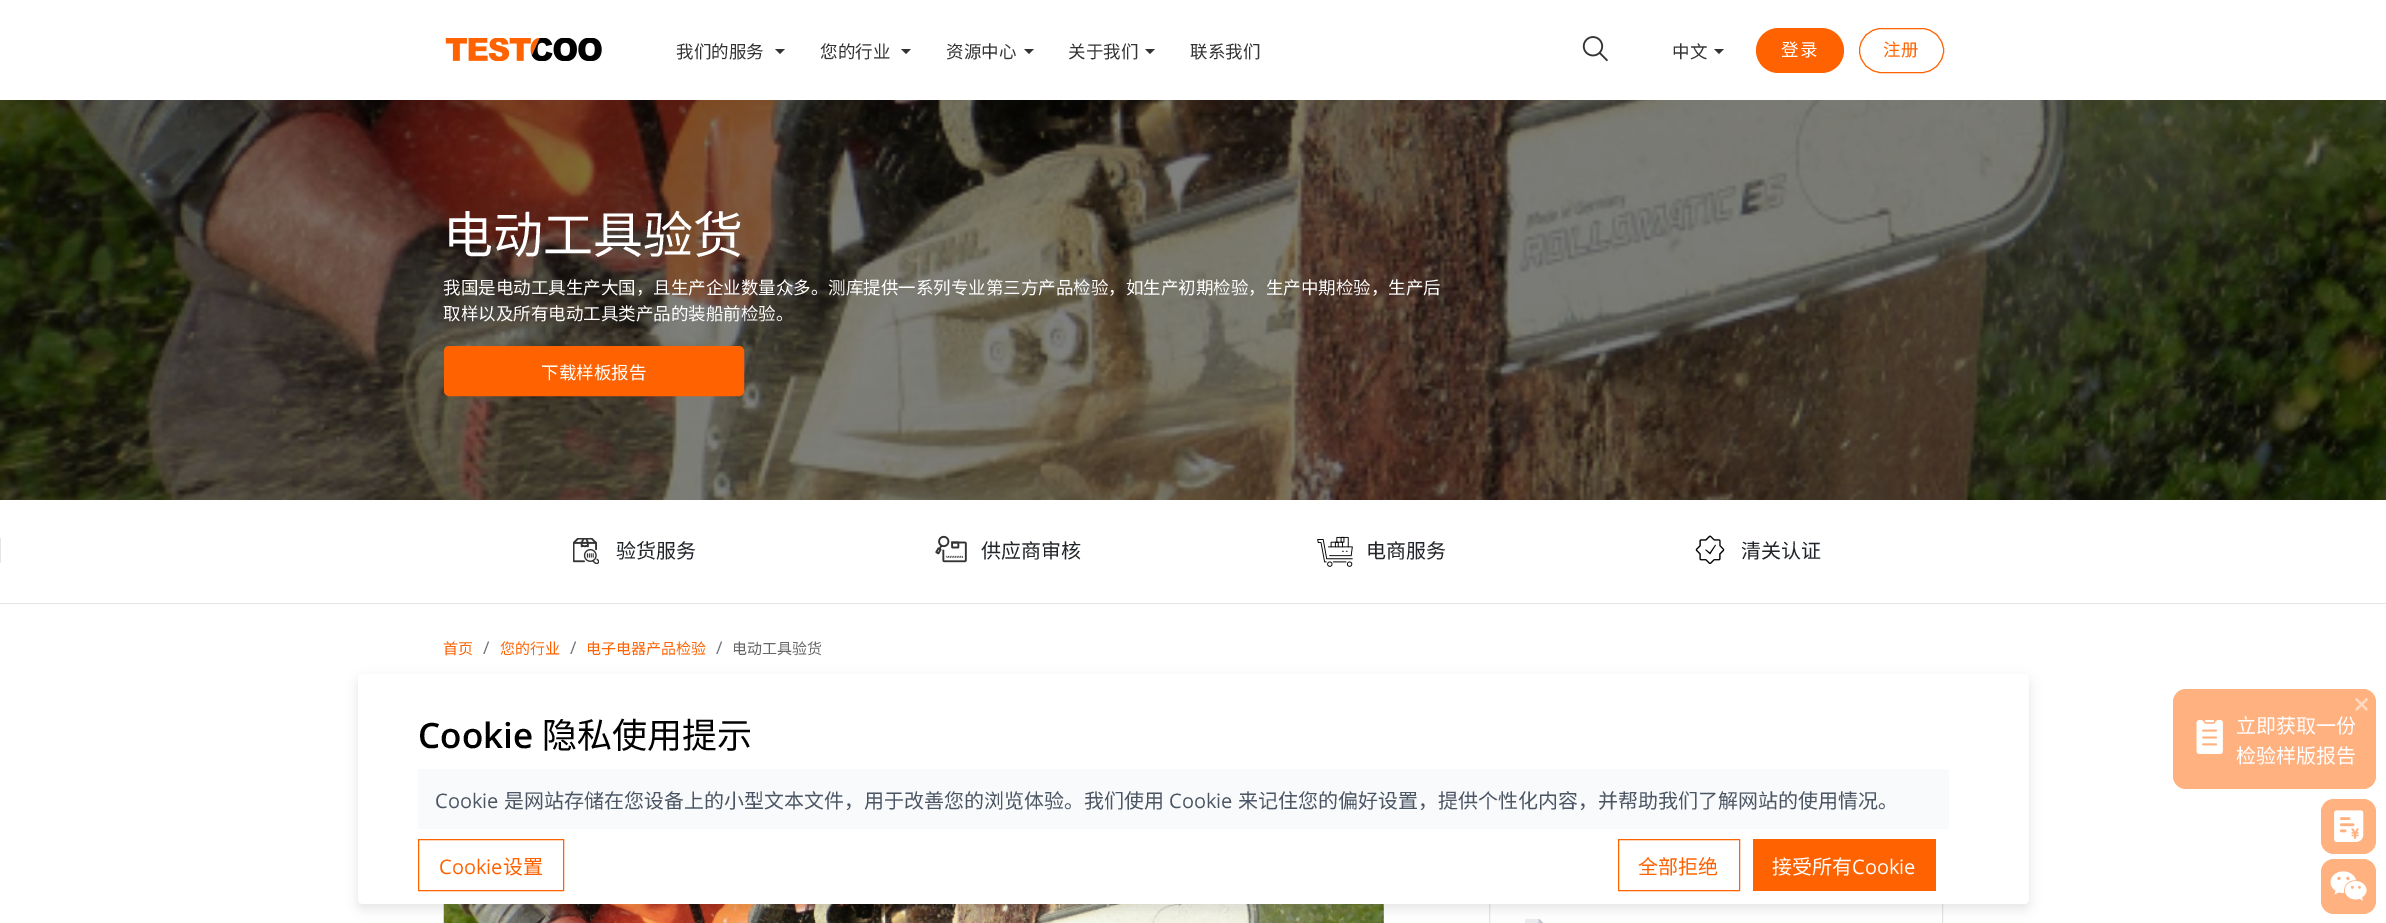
%!PS
<< /PageSize [2386 923] /PageUsesTransparency true >> setpagedevice
/rgb { 3 { 255 div 3 1 roll } repeat setrgbcolor } def
/font { [ exch dup neg 0 0 3 -1 roll 0 0 ] selectfont } def
/text { moveto show } def
/alpha { dup .setfillconstantalpha .setstrokeconstantalpha } def
/roundrect { 5 dict begin { /r /h /w /y /x } { exch def } forall
  x r add y moveto x w add y 2 copy h add r arct x w add y h add x 1 index r arct
  x y h add x y r arct x y 2 copy exch w add exch r arct closepath end } def
/shadow { 12 dict begin { /a /b /q /h /w /y /x } { exch def } forall gsave /was 0 def
  9 -2 -9 { dup b mul 4 div /e exch def 1 sub .425 mul 2.718 exch exp 1 add a .99 .min exch div /now exch def
    1 1 now sub 1 was sub div sub alpha /was now def
    w h .min e 2 mul add 0 gt { x e sub y e sub w e 2 mul add h e 2 mul add
      q e add b .6 mul add w h .min 2 div e add .min 0 .max roundrect fill } if } for grestore end } def
/picture { 5 dict begin { /h /w /y /x /name } { exch def } forall
  gsave x y translate w h scale
  w h 8 [w 0 0 h 0 0] name (r) file false 3 colorimage grestore end } def
0 .pushpdf14devicefilter
0 923 translate 1 -1 scale
4 setmiterlimit
255 255 255 rgb
0 0 2386 923 rectfill
(img_01.rgb) 445 38 157 23 picture
51 51 51 rgb
775 49 moveto 10 0 rlineto -5 5 rlineto closepath fill
901 49 moveto 10 0 rlineto -5 5 rlineto closepath fill
1024 49 moveto 10 0 rlineto -5 5 rlineto closepath fill
1145 49 moveto 10 0 rlineto -5 5 rlineto closepath fill
(img_02.rgb) 1582 36 26 26 picture
1714 49 moveto 10 0 rlineto -5 5 rlineto closepath fill
255 98 0 rgb
1756 28 88 45 22.5 roundrect fill
1859.5 28.5 84 44 22 roundrect stroke
(img_03.rgb) 0 100 2386 400 picture
444.5 346.5 299 49 4.5 roundrect gsave fill grestore
stroke
229 229 229 rgb
0 603 2386 1 rectfill
(img_04.rgb) 573 538 26 26 picture
0 538 1 25 rectfill
(img_05.rgb) 935 535 32 28 picture
(img_06.rgb) 1317 536 36 31 picture
(img_07.rgb) 1695 535 30 30 picture
(img_08.rgb) 443 904 941 19 picture
1489.5 690.5 453 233 rectstroke
(img_09.rgb) 1525 919 19 4 picture
255 177 128 rgb
2173 689 203 100 13 roundrect fill
(img_10.rgb) 2196 720 27 34 picture
2321 799 55 55 13 roundrect fill
(img_11.rgb) 2334 810 30 32 picture
2321 859 55 55 13 roundrect fill
(img_12.rgb) 2330 871 37 30 picture
0 0 0 rgb
358 679 1671 230 5 6 0.1 shadow
255 255 255 rgb
358 674 1671 230 5 roundrect fill
249 250 251 rgb
418 769 1531 60 rectfill
255 98 0 rgb
418.5 839.5 145 51 rectstroke
1618.5 839.5 121 51 rectstroke
1753 839 183 52 rectfill
/NotoSansCJKSC-Regular 17.5 font
51 51 51 rgb
(我们的服务) 676 58 text
(您的行业) 820 58 text
(资源中心) 946 58 text
(关于我们) 1068 58 text
(联系我们) 1190 58 text
(中文) 1672 58 text
255 255 255 rgb
1781 56 moveto 1 0 (登录) ashow
255 98 0 rgb
(注册) 1883 56 text
/NotoSansCJKSC-Regular 50 font
255 255 255 rgb
(电动工具验货) 443 253 text
/NotoSansCJKSC-Regular 17.5 font
(我国是电动工具生产大国，且生产企业数量众多。测库提供一系列专业第三方产品检验，如生产初期检验，生产中期检验，生产后) 443 294 text
(取样以及所有电动工具类产品的装船前检验。) 443 320 text
(下载样板报告) 541 379 text
/NotoSansCJKSC-Regular 20 font
33 37 41 rgb
(验货服务) 616 558 text
(供应商审核) 981 558 text
(电商服务) 1366 558 text
(清关认证) 1741 558 text
/NotoSansCJKSC-Regular 15 font
255 98 0 rgb
(首页) 443 654 text
/OpenSans-Regular 17.5 font
108 117 125 rgb
(/) 483 654 text
/NotoSansCJKSC-Regular 15 font
255 98 0 rgb
(您的行业) 500 654 text
/OpenSans-Regular 17.5 font
108 117 125 rgb
(/) 570 654 text
/NotoSansCJKSC-Regular 15 font
255 98 0 rgb
(电子电器产品检验) 586 654 text
/OpenSans-Regular 17.5 font
108 117 125 rgb
(/) 716 654 text
/NotoSansCJKSC-Regular 15 font
102 102 102 rgb
(电动工具验货) 732 654 text
/OpenSans-SemiBold 30 font
255 216 192 rgb
(×) 2353 715 text
/NotoSansCJKSC-Regular 20 font
255 255 255 rgb
(立即获取一份) 2236 733 text
(检验样版报告) 2236 763 text
/OpenSans-SemiBold 35 font
0 0 0 rgb
(Cookie) 418 748 text
/NotoSansCJKSC-Regular 35 font
(隐私使用提示) 542 748 text
/OpenSans-Regular 20 font
75 85 99 rgb
(Cookie) 435 808 text
/NotoSansCJKSC-Regular 20 font
(是网站存储在您设备上的小型文本文件，用于改善您的浏览体验。我们使用) 504 808 text
/OpenSans-Regular 20 font
(Cookie) 1169 808 text
/NotoSansCJKSC-Regular 20 font
(来记住您的偏好设置，提供个性化内容，并帮助我们了解网站的使用情况。) 1238 808 text
/OpenSans-Regular 20 font
255 98 0 rgb
(Cookie) 439 874 text
/NotoSansCJKSC-Regular 20 font
(设置) 503 874 text
(全部拒绝) 1638 874 text
255 255 255 rgb
(接受所有) 1772 874 text
/OpenSans-Regular 20 font
(Cookie) 1852 874 text
.poppdf14devicefilter showpage
